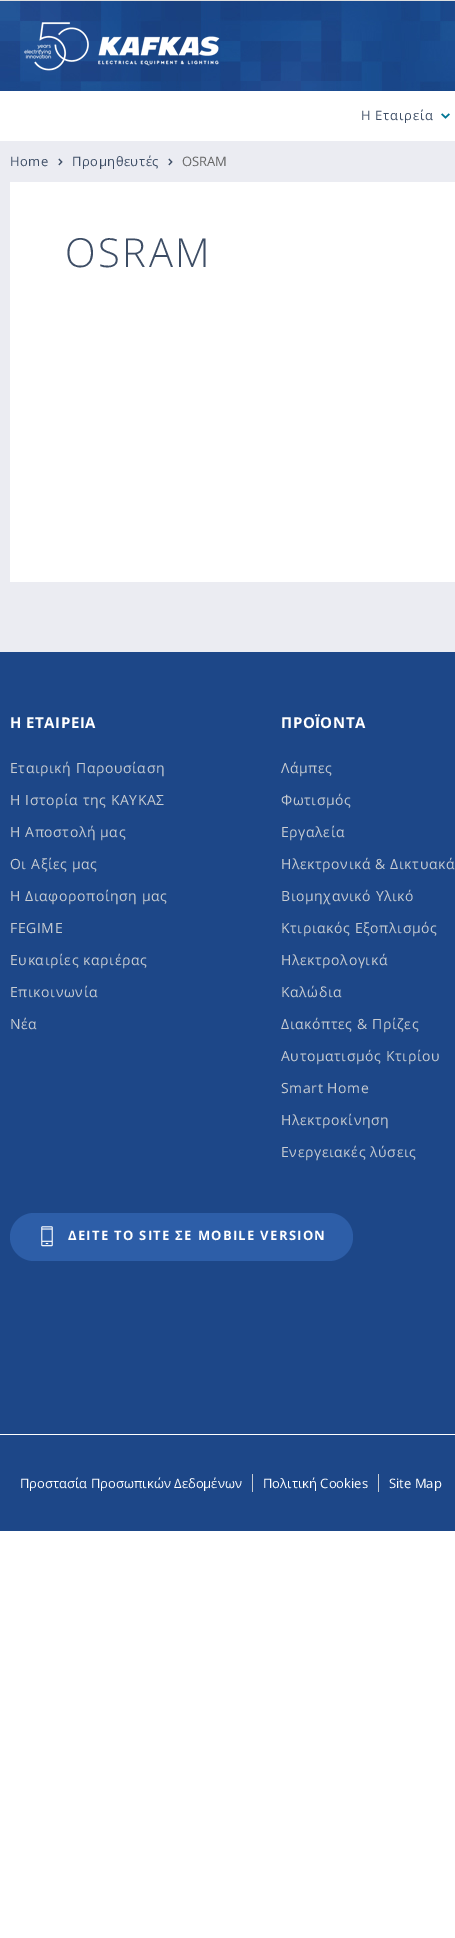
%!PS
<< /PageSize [455 1938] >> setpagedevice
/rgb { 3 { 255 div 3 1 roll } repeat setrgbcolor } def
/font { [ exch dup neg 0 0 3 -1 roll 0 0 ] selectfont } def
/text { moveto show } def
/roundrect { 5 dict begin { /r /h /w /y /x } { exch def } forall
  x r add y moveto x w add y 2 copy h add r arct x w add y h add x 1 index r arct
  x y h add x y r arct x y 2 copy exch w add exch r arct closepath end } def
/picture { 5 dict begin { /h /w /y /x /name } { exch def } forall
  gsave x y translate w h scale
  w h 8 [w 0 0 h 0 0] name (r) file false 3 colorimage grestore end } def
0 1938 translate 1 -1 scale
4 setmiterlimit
255 255 255 rgb
0 0 455 1938 rectfill
223 223 223 rgb
0 0 455 1 rectfill
(img_01.rgb) 0 1 455 90 picture
(img_02.rgb) 24 22 196 49 picture
(img_03.rgb) 441 113 9 6 picture
235 236 242 rgb
0 141 455 511 rectfill
(img_04.rgb) 58 158 5 8 picture
(img_04.rgb) 168 158 5 8 picture
255 255 255 rgb
10 182 445 400 rectfill
29 71 136 rgb
0 652 455 782 rectfill
45 94 168 rgb
10 1213 343 48 24 roundrect fill
(img_05.rgb) 41 1226 12 21 picture
29 71 136 rgb
0 1435 455 96 rectfill
199 204 210 rgb
252 1474 1 18 rectfill
378 1474 1 18 rectfill
/OpenSans-Regular 13 font
61 77 101 rgb
361 120 moveto 0.75 0 (Η Εταιρεία) ashow
10 166 moveto 0.5 0 (Home) ashow
72 166 moveto 0.5 0 (Προμηθευτές) ashow
102 102 102 rgb
(OSRAM) 182 166 text
/OpenSans-Light 40 font
61 77 101 rgb
65 267 moveto 2.5 0 (OSRAM) ashow
/OpenSans-Bold 15 font
255 255 255 rgb
10 728 moveto 0.5 0 (Η ΕΤΑΙΡΕΙΑ) ashow
/OpenSans-Regular 14 font
199 204 210 rgb
10 773 moveto 0.6 0 (Εταιρική Παρουσίαση) ashow
10 805 moveto 0.6 0 (Η Ιστορία της ΚΑΥΚΑΣ) ashow
10 837 moveto 0.6 0 (Η Αποστολή μας) ashow
10 869 moveto 0.6 0 (Οι Αξίες μας) ashow
10 901 moveto 0.6 0 (Η Διαφοροποίηση μας) ashow
10 933 moveto 0.6 0 (FEGIME) ashow
10 965 moveto 0.6 0 (Ευκαιρίες καριέρας) ashow
10 997 moveto 0.6 0 (Επικοινωνία) ashow
10 1029 moveto 0.6 0 (Νέα) ashow
/OpenSans-Bold 15 font
255 255 255 rgb
281 728 moveto 0.5 0 (ΠΡΟΪΟΝΤΑ) ashow
/OpenSans-Regular 14 font
199 204 210 rgb
281 773 moveto 0.6 0 (Λάμπες) ashow
281 805 moveto 0.6 0 (Φωτισμός) ashow
281 837 moveto 0.6 0 (Εργαλεία) ashow
281 869 moveto 0.6 0 (Ηλεκτρονικά & Δικτυακά) ashow
281 901 moveto 0.6 0 (Βιομηχανικό Υλικό) ashow
281 933 moveto 0.6 0 (Κτιριακός Εξοπλισμός) ashow
281 965 moveto 0.6 0 (Ηλεκτρολογικά) ashow
281 997 moveto 0.6 0 (Καλώδια) ashow
281 1029 moveto 0.6 0 (Διακόπτες & Πρίζες) ashow
281 1061 moveto 0.6 0 (Αυτοματισμός Κτιρίου) ashow
281 1093 moveto 0.6 0 (Smart Home) ashow
281 1125 moveto 0.6 0 (Ηλεκτροκίνηση) ashow
281 1157 moveto 0.6 0 (Ενεργειακές λύσεις) ashow
/OpenSans-Bold 13 font
255 255 255 rgb
68 1240 moveto 1.3 0 (ΔΕΙΤΕ ΤΟ SITE ΣΕ MOBILE VERSION) ashow
/OpenSans-Regular 13 font
(Προστασία Προσωπικών Δεδομένων) 20 1488 text
(Πολιτική Cookies) 263 1488 text
(Site Map) 389 1488 text
showpage
